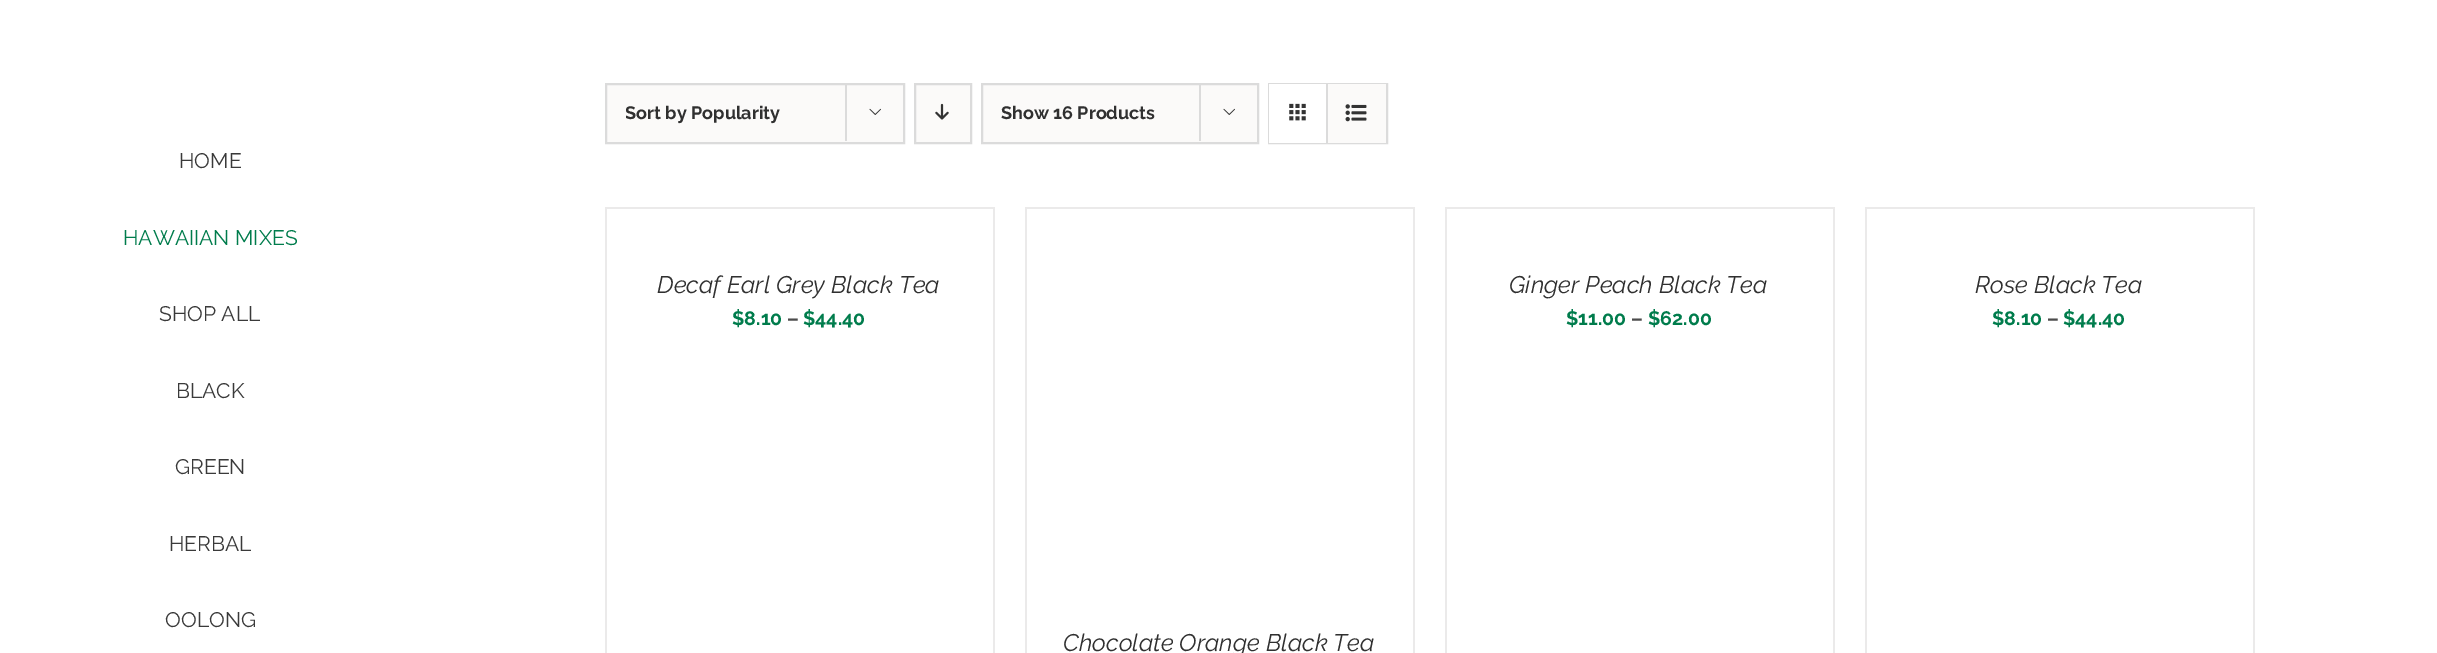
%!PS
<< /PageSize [2437 653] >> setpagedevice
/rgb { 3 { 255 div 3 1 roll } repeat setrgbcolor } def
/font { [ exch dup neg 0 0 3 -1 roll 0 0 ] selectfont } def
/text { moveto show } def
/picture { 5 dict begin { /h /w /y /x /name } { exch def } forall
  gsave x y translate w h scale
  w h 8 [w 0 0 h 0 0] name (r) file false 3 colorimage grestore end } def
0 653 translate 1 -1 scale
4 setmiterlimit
255 255 255 rgb
0 0 2437 653 rectfill
251 250 249 rgb
606 84 moveto 298 0 rlineto 0 59 rlineto -298 0 rlineto closepath gsave fill grestore
219 219 219 rgb
2 setlinewidth
stroke
845 83 2 58 rectfill
(img_01.rgb) 869 108 12 7 picture
251 250 249 rgb
915 84 moveto 56 0 rlineto 0 59 rlineto -56 0 rlineto closepath gsave fill grestore
219 219 219 rgb
stroke
(img_02.rgb) 935 103 14 17 picture
251 250 249 rgb
982 84 moveto 276 0 rlineto 0 59 rlineto -276 0 rlineto closepath gsave fill grestore
219 219 219 rgb
stroke
1199 83 2 58 rectfill
(img_01.rgb) 1223 108 12 7 picture
1269 84 118 59 rectstroke
255 255 255 rgb
1269 84 57 59 rectfill
219 219 219 rgb
1326 84 2 59 rectfill
(img_03.rgb) 1289 103 17 18 picture
251 250 249 rgb
1328 84 58 59 rectfill
(img_04.rgb) 1345 104 22 18 picture
235 234 234 rgb
605 207 390 2 rectfill
993 207 2 446 rectfill
605 207 2 446 rectfill
1445 207 390 2 rectfill
1833 207 2 446 rectfill
1445 207 2 446 rectfill
1865 207 390 2 rectfill
2253 207 2 446 rectfill
1865 207 2 446 rectfill
1025 207 390 2 rectfill
1413 207 2 446 rectfill
1025 207 2 446 rectfill
/Raleway-Regular 21 font
58 58 58 rgb
(HOME) 179 168 text
0 124 76 rgb
(HAWAIIAN MIXES) 123 245 text
58 58 58 rgb
(SHOP ALL) 159 321 text
(BLACK) 176 398 text
(GREEN) 175 474 text
(HERBAL) 169 551 text
(OOLONG) 165 627 text
gsave
626 84 199 59 rectclip
/Raleway-Bold 18 font
48 48 48 rgb
(Sort by) 625 119 text
grestore
/Raleway-Bold 18 font
48 48 48 rgb
(Popularity) 691 119 text
(Show 16 Products) 1001 119 text
/Raleway-Italic 24 font
(Decaf Earl Grey Black Tea) 657 293 text
/Raleway-Bold 19.5 font
0 124 76 rgb
($8.10) 732 325 text
76 76 76 rgb
(–) 787 325 text
0 124 76 rgb
($44.40) 803 325 text
/Raleway-Italic 24 font
48 48 48 rgb
(Ginger Peach Black Tea) 1509 293 text
/Raleway-Bold 19.5 font
0 124 76 rgb
($11.00) 1566 325 text
76 76 76 rgb
(–) 1631 325 text
0 124 76 rgb
($62.00) 1648 325 text
/Raleway-Italic 24 font
48 48 48 rgb
(Rose Black Tea) 1975 293 text
/Raleway-Bold 19.5 font
0 124 76 rgb
($8.10) 1992 325 text
76 76 76 rgb
(–) 2047 325 text
0 124 76 rgb
($44.40) 2063 325 text
/Raleway-Italic 24 font
48 48 48 rgb
(Chocolate Orange Black Tea) 1063 651 text
showpage
